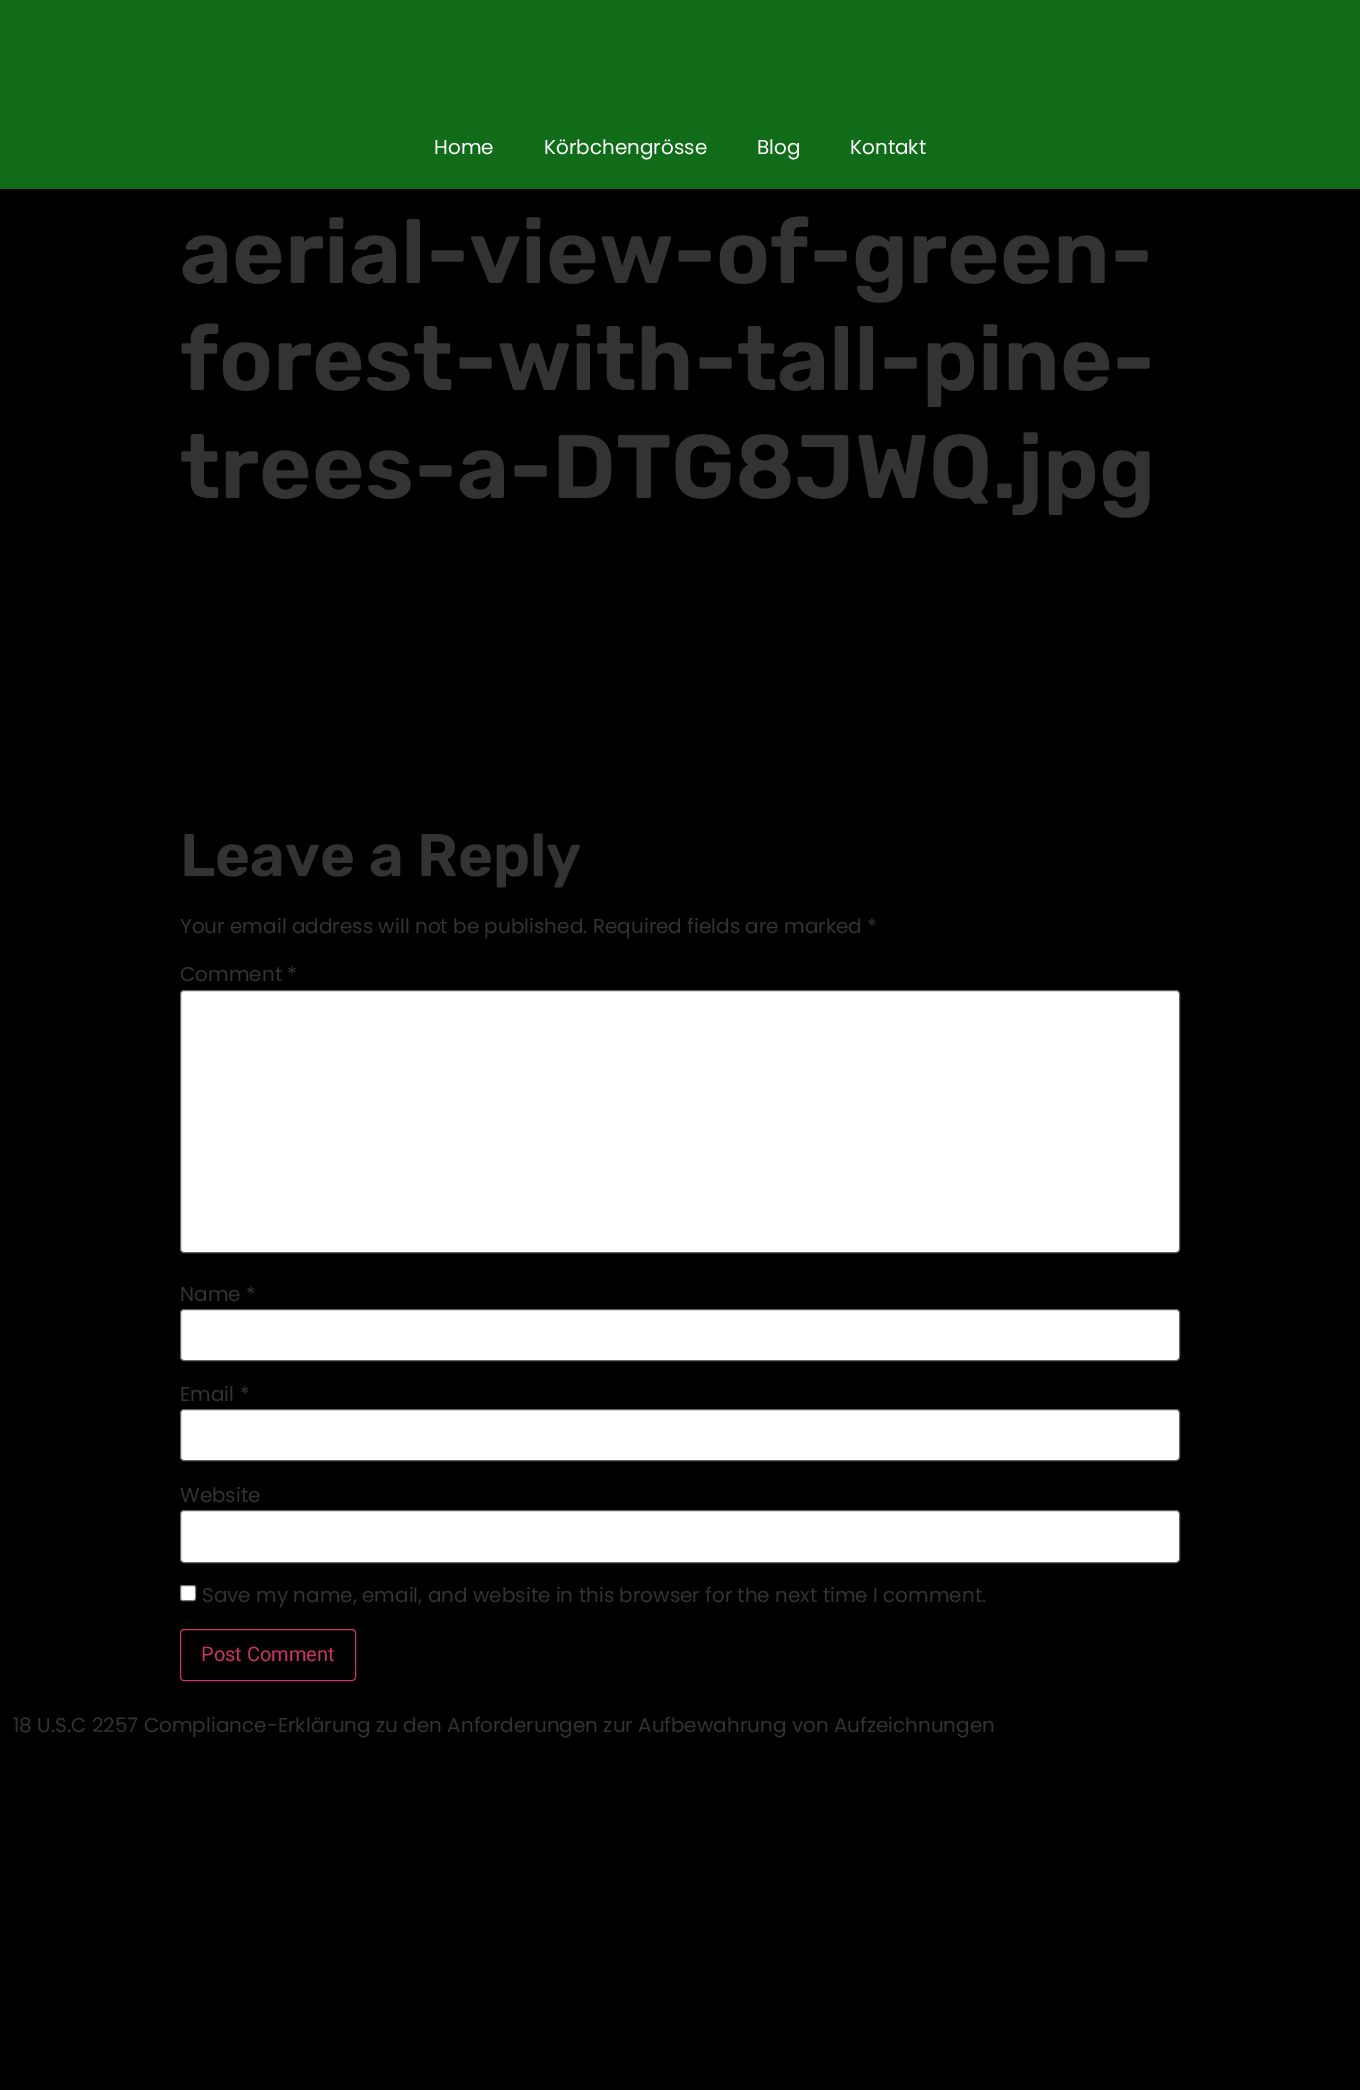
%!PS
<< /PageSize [1360 2090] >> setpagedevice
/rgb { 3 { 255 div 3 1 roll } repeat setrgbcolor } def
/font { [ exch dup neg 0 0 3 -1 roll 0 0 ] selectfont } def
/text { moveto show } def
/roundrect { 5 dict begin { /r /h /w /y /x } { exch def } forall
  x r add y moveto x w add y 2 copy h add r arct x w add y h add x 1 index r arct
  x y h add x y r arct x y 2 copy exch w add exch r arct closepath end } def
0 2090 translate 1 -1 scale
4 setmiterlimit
0 0 0 rgb
0 0 1360 2090 rectfill
16 108 25 rgb
0 0 1360 189 rectfill
255 255 255 rgb
180.5 990.5 999 262 3.5 roundrect gsave fill grestore
102 102 102 rgb
stroke
255 255 255 rgb
180.5 1309.5 999 51 3.5 roundrect gsave fill grestore
102 102 102 rgb
stroke
255 255 255 rgb
180.5 1409.5 999 51 3.5 roundrect gsave fill grestore
102 102 102 rgb
stroke
255 255 255 rgb
180.5 1510.5 999 52 3.5 roundrect gsave fill grestore
102 102 102 rgb
stroke
255 255 255 rgb
180.5 1585.5 15 15 2 roundrect gsave fill grestore
118 118 118 rgb
stroke
204 51 102 rgb
180.5 1629.5 175 51 3.5 roundrect stroke
/Poppins-Regular 20 font
255 255 255 rgb
(Home) 434 154 text
(Körbchengrösse) 544 154 text
(Blog) 757 154 text
(Kontakt) 850 154 text
/Rubik-SemiBold 90 font
51 51 51 rgb
(aerial-view-of-green-) 180 283 text
(forest-with-tall-pine-) 180 390 text
(trees-a-DTG8JWQ.jpg) 180 498 text
/Rubik-SemiBold 60 font
(Leave a Reply) 180 876 text
/Poppins-Regular 20 font
(Your email address will not be published. Required fields are marked *) 180 933 text
(Comment *) 180 981 text
(Name *) 180 1301 text
(Email *) 180 1401 text
(Website) 180 1502 text
(Save my name, email, and website in this browser for the next time I comment.) 202 1602 text
/Roboto-Regular 20 font
204 51 102 rgb
(Post Comment) 201 1661 text
/Poppins-Regular 20 font
51 51 51 rgb
(18 U.S.C 2257 Compliance-Erklärung zu den Anforderungen zur Aufbewahrung von Aufzeichnungen) 13 1732 text
showpage
